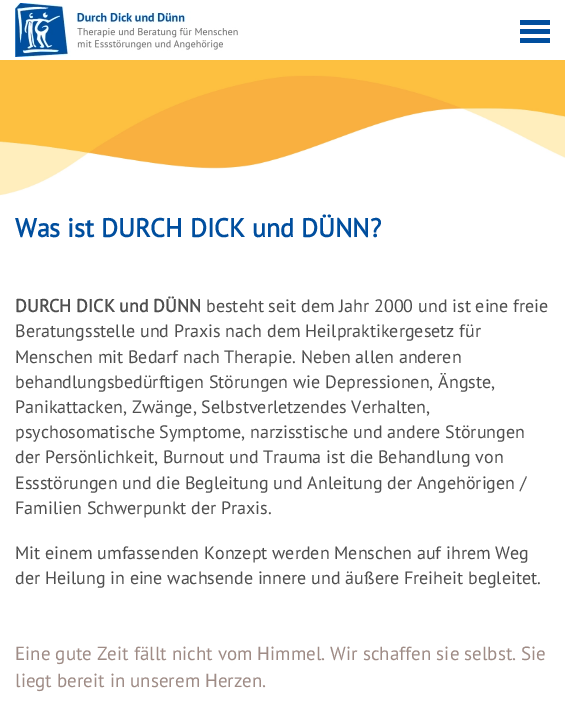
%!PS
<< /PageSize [565 705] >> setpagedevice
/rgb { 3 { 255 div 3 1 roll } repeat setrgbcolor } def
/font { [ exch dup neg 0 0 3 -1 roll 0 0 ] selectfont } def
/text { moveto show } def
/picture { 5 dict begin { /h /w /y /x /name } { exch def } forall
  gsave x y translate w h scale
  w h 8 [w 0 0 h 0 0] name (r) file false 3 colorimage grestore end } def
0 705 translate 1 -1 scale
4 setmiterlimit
255 255 255 rgb
0 0 565 705 rectfill
252 192 64 rgb
0 60 565 2 rectfill
(img_01.rgb) 15 3 223 54 picture
0 78 158 rgb
520 20 30 5 rectfill
520 29 30 5 rectfill
520 38 30 5 rectfill
(img_02.rgb) 0 62 565 134 picture
/PTSans-Bold 26 font
(Was ist DURCH DICK und DÜNN?) 15 237 text
/PTSans-Bold 18 font
79 79 79 rgb
(DURCH DICK und DÜNN) 15 312 text
/PTSans-Regular 18 font
(besteht seit dem Jahr 2000 und ist eine freie) 206 312 text
(Beratungsstelle und Praxis nach dem Heilpraktikergesetz für) 15 337 text
(Menschen mit Bedarf nach Therapie. Neben allen anderen) 15 363 text
(behandlungsbedürftigen Störungen wie Depressionen, Ängste,) 15 388 text
(Panikattacken, Zwänge, Selbstverletzendes Verhalten,) 15 413 text
(psychosomatische Symptome, narzisstische und andere Störungen) 15 438 text
(der Persönlichkeit, Burnout und Trauma ist die Behandlung von) 15 463 text
(Essstörungen und die Begleitung und Anleitung der Angehörigen /) 15 489 text
(Familien Schwerpunkt der Praxis.) 15 514 text
(Mit einem umfassenden Konzept werden Menschen auf ihrem Weg) 15 559 text
(der Heilung in eine wachsende innere und äußere Freiheit begleitet.) 15 584 text
/PTSans-Regular 19 font
159 140 134 rgb
(Eine gute Zeit fällt nicht vom Himmel. Wir schaffen sie selbst. Sie) 15 660 text
(liegt bereit in unserem Herzen.) 15 687 text
showpage
